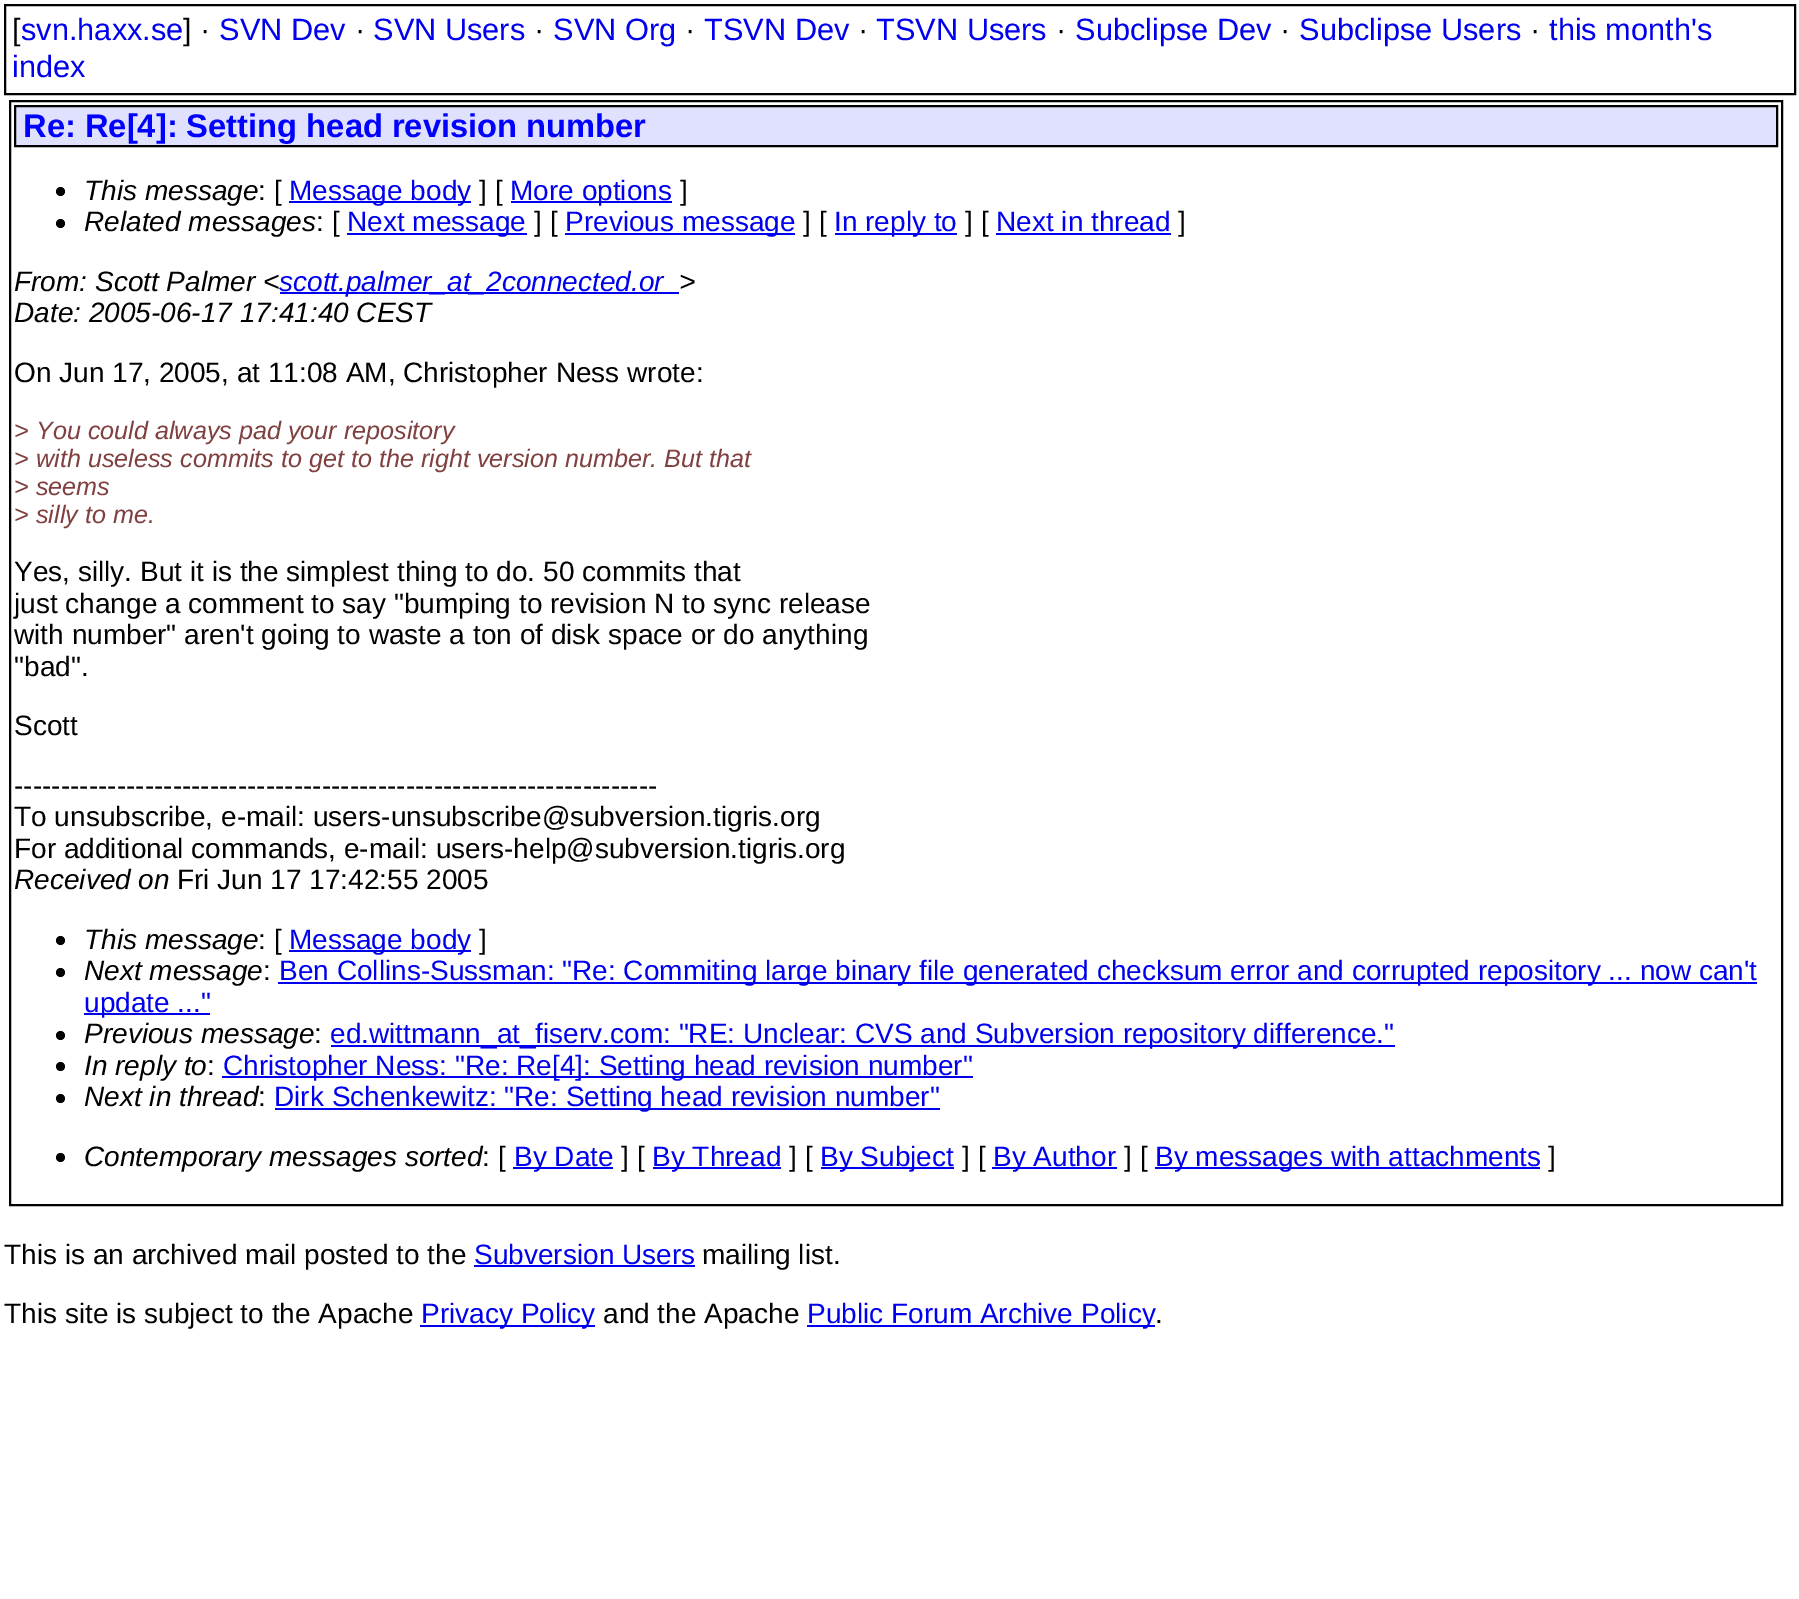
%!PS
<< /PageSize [1799 1599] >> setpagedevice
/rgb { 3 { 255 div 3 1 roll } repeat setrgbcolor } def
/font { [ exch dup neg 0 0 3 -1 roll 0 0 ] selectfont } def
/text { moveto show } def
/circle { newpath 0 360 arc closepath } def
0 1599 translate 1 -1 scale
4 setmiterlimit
255 255 255 rgb
0 0 1799 1599 rectfill
0 0 0 rgb
2 setlinewidth
5 5 1790 89 rectstroke
10 101 1772 1104 rectstroke
224 224 255 rgb
15 106 moveto 1762 0 rlineto 0 40 rlineto -1762 0 rlineto closepath gsave fill grestore
0 0 0 rgb
stroke
60.5 191.5 4.5 circle fill
0 0 238 rgb
289 201 182 2 rectfill
511 201 161 2 rectfill
0 0 0 rgb
60.5 223.5 4.5 circle fill
0 0 238 rgb
347 233 180 2 rectfill
565 233 230 2 rectfill
835 233 122 2 rectfill
996 233 175 2 rectfill
280 292 399 2 rectfill
0 0 0 rgb
60.5 940.5 4.5 circle fill
0 0 238 rgb
289 950 182 2 rectfill
0 0 0 rgb
60.5 972.5 4.5 circle fill
0 0 238 rgb
278 982 1479 2 rectfill
84 1013 126 2 rectfill
0 0 0 rgb
60.5 1035.5 4.5 circle fill
0 0 238 rgb
331 1045 1064 2 rectfill
0 0 0 rgb
60.5 1066.5 4.5 circle fill
0 0 238 rgb
222 1076 751 2 rectfill
0 0 0 rgb
60.5 1098.5 4.5 circle fill
0 0 238 rgb
275 1108 665 2 rectfill
0 0 0 rgb
60.5 1157.5 4.5 circle fill
0 0 238 rgb
513 1167 100 2 rectfill
653 1167 128 2 rectfill
821 1167 133 2 rectfill
992 1167 125 2 rectfill
1155 1167 385 2 rectfill
474 1265 221 2 rectfill
420 1325 175 2 rectfill
807 1325 348 2 rectfill
/LiberationSans-Regular 30.75 font
0 0 0 rgb
([) 12 40 text
0 0 238 rgb
(svn.haxx.se) 21 40 text
0 0 0 rgb
(] ·) 183 40 text
0 0 238 rgb
(SVN Dev) 219 40 text
0 0 0 rgb
(·) 355 40 text
0 0 238 rgb
(SVN Users) 373 40 text
0 0 0 rgb
(·) 534 40 text
0 0 238 rgb
(SVN Org) 553 40 text
0 0 0 rgb
(·) 685 40 text
0 0 238 rgb
(TSVN Dev) 704 40 text
0 0 0 rgb
(·) 858 40 text
0 0 238 rgb
(TSVN Users) 876 40 text
0 0 0 rgb
(·) 1056 40 text
0 0 238 rgb
(Subclipse Dev) 1075 40 text
0 0 0 rgb
(·) 1280 40 text
0 0 238 rgb
(Subclipse Users) 1299 40 text
0 0 0 rgb
(·) 1530 40 text
0 0 238 rgb
(this month's) 1549 40 text
(index) 12 77 text
/LiberationSans-Bold 32.7 font
0 0 255 rgb
(Re: Re[4]: Setting head revision number) 23 137 text
/LiberationSans-Italic 28 font
0 0 0 rgb
(This message) 84 200 text
/LiberationSans-Regular 28 font
(: [) 258 200 text
0 0 238 rgb
(Message body) 289 200 text
0 0 0 rgb
(] [) 479 200 text
0 0 238 rgb
(More options) 510 200 text
0 0 0 rgb
(]) 680 200 text
/LiberationSans-Italic 28 font
(Related messages) 84 231 text
/LiberationSans-Regular 28 font
(: [) 316 231 text
0 0 238 rgb
(Next message) 347 231 text
0 0 0 rgb
(] [) 534 231 text
0 0 238 rgb
(Previous message) 565 231 text
0 0 0 rgb
(] [) 803 231 text
0 0 238 rgb
(In reply to) 834 231 text
0 0 0 rgb
(] [) 965 231 text
0 0 238 rgb
(Next in thread) 996 231 text
0 0 0 rgb
(]) 1178 231 text
/LiberationSans-Italic 28 font
(From: Scott Palmer <) 14 291 text
0 0 238 rgb
(scott.palmer_at_2connected.or) 279 291 text
0 0 0 rgb
(>) 679 291 text
(Date: 2005-06-17 17:41:40 CEST) 14 322 text
/LiberationSans-Regular 28 font
(On Jun 17, 2005, at 11:08 AM, Christopher Ness wrote:) 14 382 text
/LiberationSans-Italic 25.2 font
128 64 64 rgb
(> You could always pad your repository) 14 439 text
(> with useless commits to get to the right version number.) 14 467 text
(But that) 664 467 text
(> seems) 14 495 text
(> silly to me.) 14 523 text
/LiberationSans-Regular 28 font
0 0 0 rgb
(Yes, silly. But it is the simplest thing to do. 50 commits that) 14 581 text
(just change a comment to say "bumping to revision N to sync release) 14 613 text
(with number" aren't going to waste a ton of disk space or do anything) 14 644 text
("bad".) 14 676 text
(Scott) 14 735 text
(---------------------------------------------------------------------) 14 795 text
(To unsubscribe, e-mail: users-unsubscribe@subversion.tigris.org) 14 826 text
(For additional commands, e-mail: users-help@subversion.tigris.org) 14 858 text
/LiberationSans-Italic 28 font
(Received on) 14 889 text
/LiberationSans-Regular 28 font
(Fri Jun 17 17:42:55 2005) 177 889 text
/LiberationSans-Italic 28 font
(This message) 84 949 text
/LiberationSans-Regular 28 font
(: [) 258 949 text
0 0 238 rgb
(Message body) 289 949 text
0 0 0 rgb
(]) 479 949 text
/LiberationSans-Italic 28 font
(Next message) 84 980 text
/LiberationSans-Regular 28 font
(:) 263 980 text
0 0 238 rgb
(Ben Collins-Sussman: "Re: Commiting large binary file generated checksum error and corrupted repository ... now can't) 279 980 text
(update ...") 84 1012 text
/LiberationSans-Italic 28 font
0 0 0 rgb
(Previous message) 84 1043 text
/LiberationSans-Regular 28 font
(:) 314 1043 text
0 0 238 rgb
(ed.wittmann_at_fiserv.com: "RE: Unclear: CVS and Subversion repository difference.") 330 1043 text
/LiberationSans-Italic 28 font
0 0 0 rgb
(In reply to) 84 1075 text
/LiberationSans-Regular 28 font
(:) 207 1075 text
0 0 238 rgb
(Christopher Ness: "Re: Re[4]: Setting head revision number") 223 1075 text
/LiberationSans-Italic 28 font
0 0 0 rgb
(Next in thread) 84 1106 text
/LiberationSans-Regular 28 font
(:) 258 1106 text
0 0 238 rgb
(Dirk Schenkewitz: "Re: Setting head revision number") 274 1106 text
/LiberationSans-Italic 28 font
0 0 0 rgb
(Contemporary messages sorted) 84 1166 text
/LiberationSans-Regular 28 font
(: [) 482 1166 text
0 0 238 rgb
(By Date) 514 1166 text
0 0 0 rgb
(] [) 621 1166 text
0 0 238 rgb
(By Thread) 652 1166 text
0 0 0 rgb
(] [) 789 1166 text
0 0 238 rgb
(By Subject) 820 1166 text
0 0 0 rgb
(] [) 962 1166 text
0 0 238 rgb
(By Author) 993 1166 text
0 0 0 rgb
(] [) 1124 1166 text
0 0 238 rgb
(By messages with attachments) 1155 1166 text
0 0 0 rgb
(]) 1548 1166 text
(This is an archived mail posted to the) 4 1264 text
0 0 238 rgb
(Subversion Users) 474 1264 text
0 0 0 rgb
(mailing list.) 702 1264 text
(This site is subject to the Apache) 4 1323 text
0 0 238 rgb
(Privacy Policy) 421 1323 text
0 0 0 rgb
(and the Apache) 603 1323 text
0 0 238 rgb
(Public Forum Archive Policy) 807 1323 text
0 0 0 rgb
(.) 1155 1323 text
showpage
